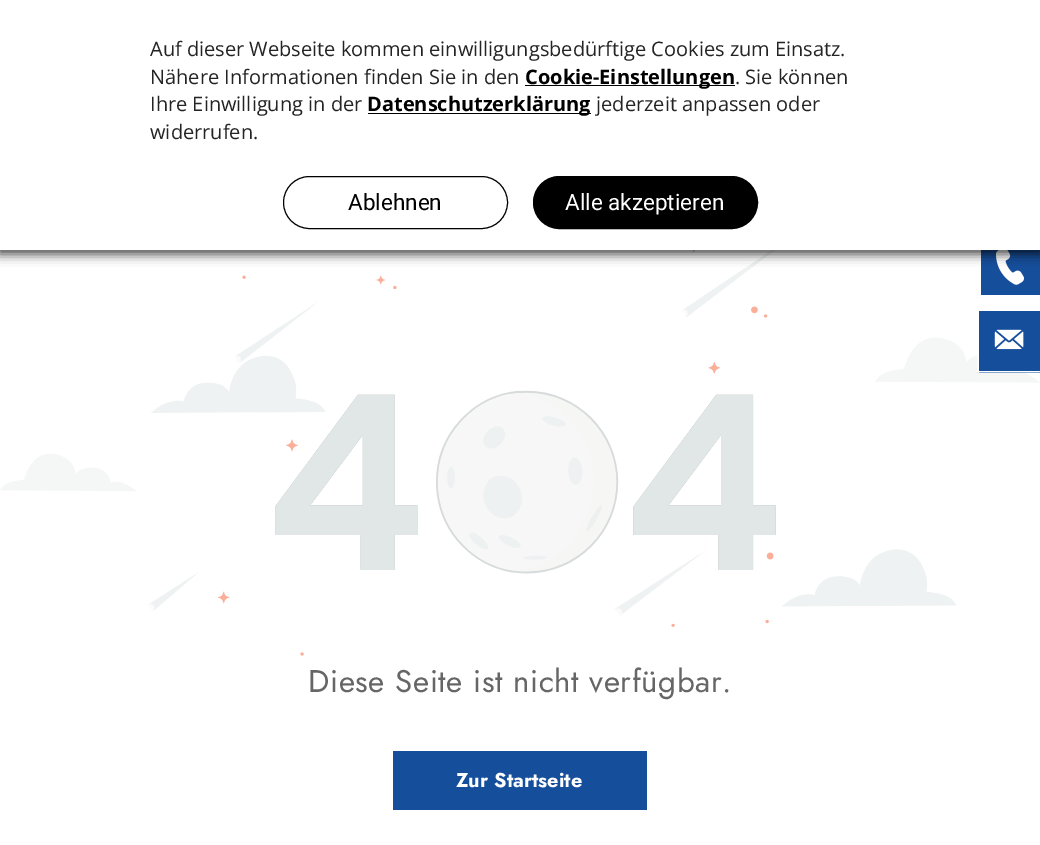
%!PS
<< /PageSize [1040 845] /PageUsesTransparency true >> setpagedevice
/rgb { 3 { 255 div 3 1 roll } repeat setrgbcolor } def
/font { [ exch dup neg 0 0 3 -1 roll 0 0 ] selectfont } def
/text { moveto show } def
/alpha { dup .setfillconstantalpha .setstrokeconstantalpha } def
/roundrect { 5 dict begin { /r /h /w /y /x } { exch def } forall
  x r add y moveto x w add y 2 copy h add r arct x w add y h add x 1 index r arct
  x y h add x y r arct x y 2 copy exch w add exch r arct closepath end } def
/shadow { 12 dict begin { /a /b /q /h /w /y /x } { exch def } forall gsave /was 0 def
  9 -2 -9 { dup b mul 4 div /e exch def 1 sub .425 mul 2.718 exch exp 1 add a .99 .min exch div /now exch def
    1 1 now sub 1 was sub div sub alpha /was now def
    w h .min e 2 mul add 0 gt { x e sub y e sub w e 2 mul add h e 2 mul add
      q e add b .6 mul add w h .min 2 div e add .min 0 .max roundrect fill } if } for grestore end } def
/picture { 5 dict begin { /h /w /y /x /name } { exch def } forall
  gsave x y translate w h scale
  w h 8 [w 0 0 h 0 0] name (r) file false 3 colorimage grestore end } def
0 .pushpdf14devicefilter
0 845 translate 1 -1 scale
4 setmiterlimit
255 255 255 rgb
0 0 1040 845 rectfill
(img_03.rgb) 0 250 1040 406 picture
978 295 62 3 rectfill
979 250 2 48 rectfill
(img_01.rgb) 996 250 28 35 picture
0 0 0 rgb
-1 1 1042 253 0 5.5 0.75 shadow
255 255 255 rgb
0 0 1040 250 rectfill
0 0 0 rgb
525 85 210 1 rectfill
368 113 223 1 rectfill
283.5 176.5 224 52 26 roundrect stroke
533.5 176.5 224 52 26 roundrect gsave fill grestore
stroke
21 78 155 rgb
979 311 61 60 rectfill
255 255 255 rgb
1039 310 1 1 rectfill
978 371 62 1 rectfill
978 310 1 63 rectfill
(img_02.rgb) 994 329 30 21 picture
21 78 155 rgb
393 751 254 59 rectfill
/OpenSans-Regular 20 font
36 36 36 rgb
(Auf dieser Webseite kommen einwilligungsbedürftige Cookies zum Einsatz.) 150 56 text
(Nähere Informationen finden Sie in den) 150 84 text
/OpenSans-Bold 20 font
0 0 0 rgb
(Cookie-Einstellungen) 525 84 text
/OpenSans-Regular 20 font
36 36 36 rgb
(. Sie können) 735 84 text
(Ihre Einwilligung in der) 150 111 text
/OpenSans-Bold 20 font
0 0 0 rgb
(Datenschutzerklärung) 367 111 text
/OpenSans-Regular 20 font
36 36 36 rgb
(jederzeit anpassen oder) 596 111 text
(widerrufen.) 150 139 text
/Roboto-Regular 22.5 font
0 0 0 rgb
(Ablehnen) 348 210 text
255 255 255 rgb
(Alle akzeptieren) 565 210 text
/Jost-Regular 31.25 font
102 102 102 rgb
308 692 moveto 0.6 0 (Diese Seite ist nicht verfügbar.) ashow
/Jost-Bold 20 font
255 255 255 rgb
(Zur Startseite) 456 787 text
.poppdf14devicefilter showpage
